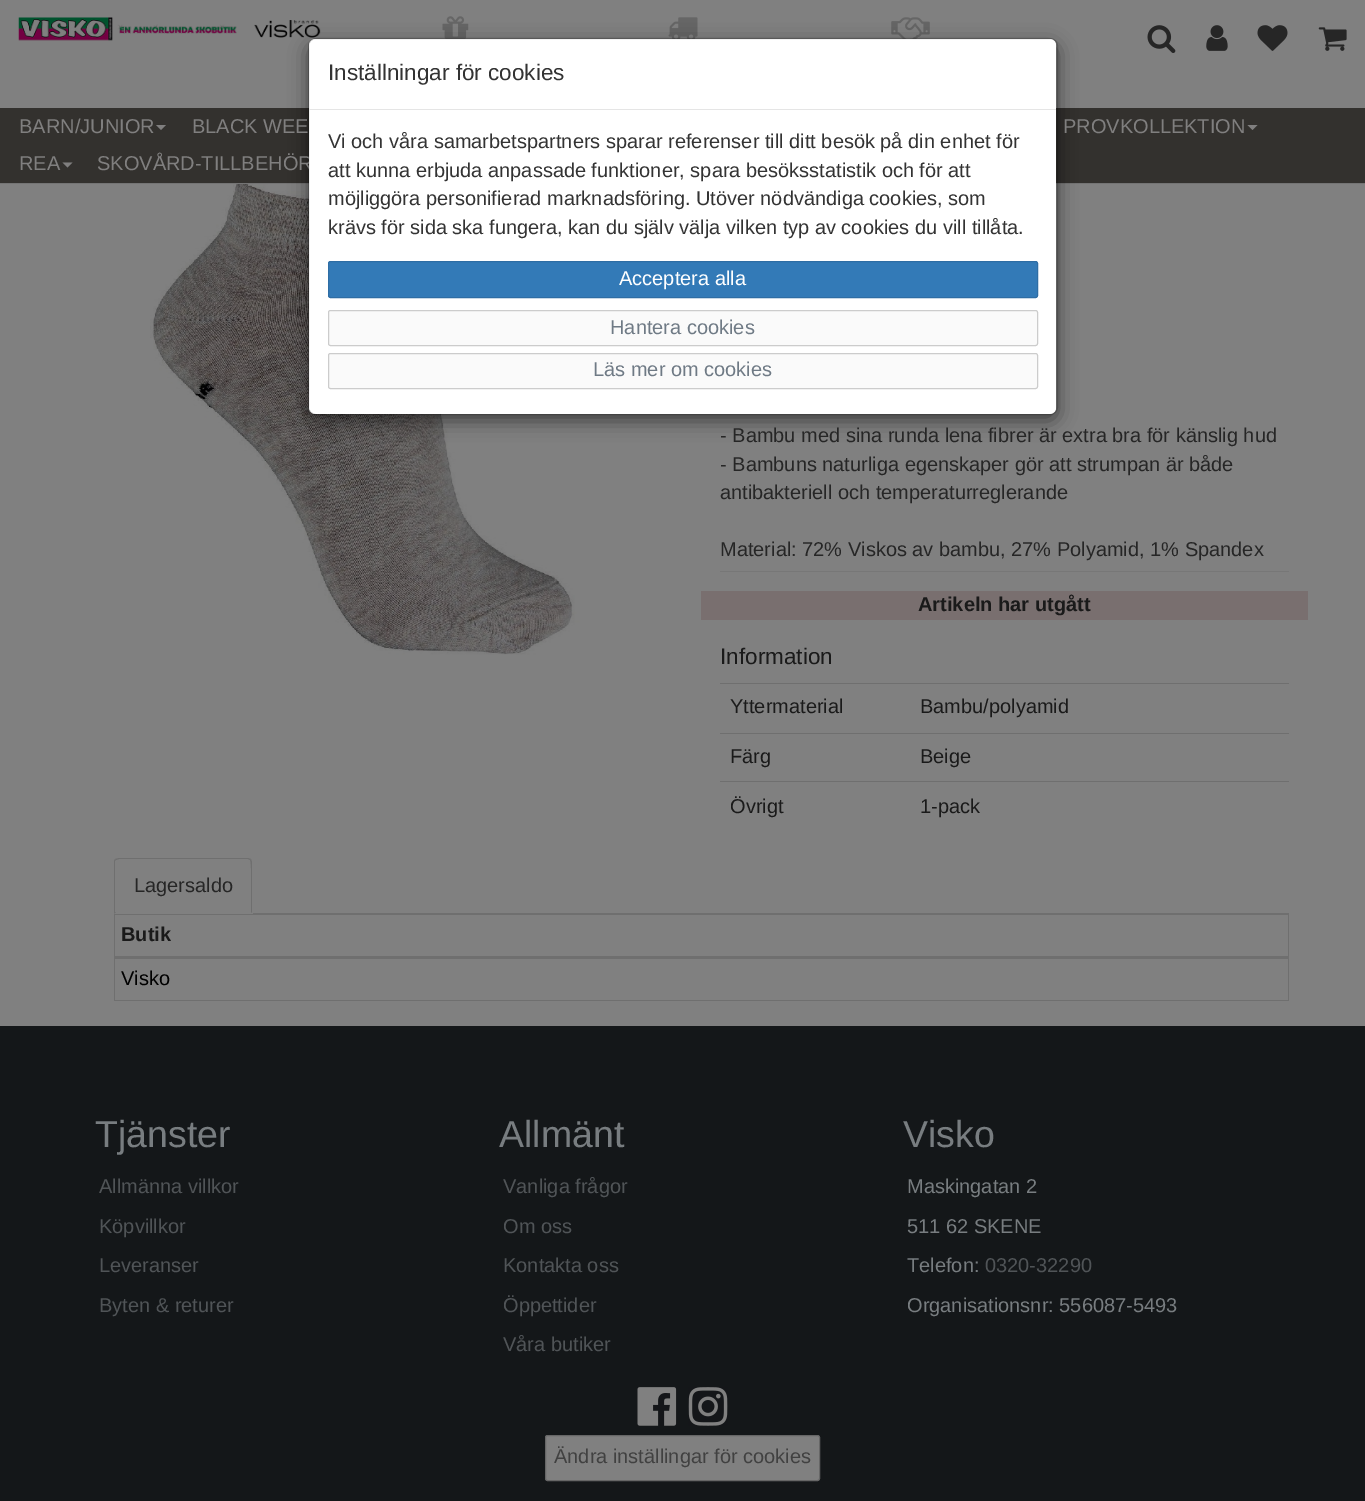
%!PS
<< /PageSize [1365 1501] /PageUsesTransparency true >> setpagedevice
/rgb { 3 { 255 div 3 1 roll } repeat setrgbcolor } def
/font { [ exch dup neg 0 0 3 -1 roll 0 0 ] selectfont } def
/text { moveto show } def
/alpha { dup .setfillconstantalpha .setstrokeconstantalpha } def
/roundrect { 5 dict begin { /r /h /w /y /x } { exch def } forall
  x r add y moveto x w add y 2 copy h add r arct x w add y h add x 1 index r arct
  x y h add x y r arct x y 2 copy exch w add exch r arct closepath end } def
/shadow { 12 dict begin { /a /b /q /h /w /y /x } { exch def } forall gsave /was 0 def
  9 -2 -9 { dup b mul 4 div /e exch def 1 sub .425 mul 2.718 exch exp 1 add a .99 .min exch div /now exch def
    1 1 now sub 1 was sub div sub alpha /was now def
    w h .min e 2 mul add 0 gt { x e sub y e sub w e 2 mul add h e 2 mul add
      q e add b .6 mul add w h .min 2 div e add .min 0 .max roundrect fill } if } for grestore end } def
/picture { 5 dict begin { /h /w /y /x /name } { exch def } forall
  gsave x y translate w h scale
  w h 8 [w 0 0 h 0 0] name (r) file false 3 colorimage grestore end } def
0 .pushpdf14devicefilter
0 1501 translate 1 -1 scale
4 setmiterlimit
128 128 128 rgb
0 0 1365 1501 rectfill
51 49 46 rgb
0 108 1365 75 rectfill
116 116 116 rgb
0 183 1365 1 rectfill
(img_01.rgb) 18 17 303 24 picture
(img_02.rgb) 442 16 27 23 picture
(img_03.rgb) 668 17 30 22 picture
(img_04.rgb) 891 17 39 22 picture
(img_09.rgb) 150 184 514 471 picture
0 0 0 rgb
308 44 750 377 8 9.5 0.5 shadow
(img_05.rgb) 1147 25 29 28 picture
(img_06.rgb) 1206 25 22 26 picture
(img_07.rgb) 1257 25 31 26 picture
(img_08.rgb) 1318 27 29 24 picture
128 127 127 rgb
156 125 moveto 10 0 rlineto -5 5 rlineto closepath fill
1247.5 125 moveto 10 0 rlineto -5 5 rlineto closepath fill
62.5 162.5 moveto 10 0 rlineto -5 5 rlineto closepath fill
119 119 119 rgb
720 571 569 1 rectfill
121 111 111 rgb
701 591 607 29 rectfill
111 111 111 rgb
720 683 569 1 rectfill
720 733 569 1 rectfill
720 781 569 1 rectfill
253 913 1036 1 rectfill
119 858 moveto -4 1 rlineto 1 1 rlineto 3 -1 rlineto 129 0 rlineto 2 1 rlineto 1 -1 rlineto -3 -1 rlineto closepath fill
252 913 moveto 0 -51 rlineto -1 -3 rlineto -1 1 rlineto 2 2 1 46 1 52 rcurveto closepath fill
115 859 moveto -1 2 rlineto 0 53 rlineto 2 -2 rlineto -1 0 rlineto 0 -51 rlineto 1 -1 rlineto closepath fill
114 914 1175 1 rectfill
1288 914 1 87 rectfill
114 1000 1175 1 rectfill
114 914 1 87 rectfill
114 956 1175 3 rectfill
20 23 25 rgb
0 1026 1365 475 rectfill
(img_10.rgb) 637 1387 40 39 picture
(img_11.rgb) 688 1387 40 39 picture
128 128 128 rgb
545.5 1435.5 274 45 2 roundrect gsave fill grestore
102 102 102 rgb
stroke
/LiberationSans-Regular 20 font
128 127 127 rgb
(BARN/JUNIOR) 19 133 text
(BLACK WEE) 192 133 text
(PROVKOLLEKTION) 1063 133 text
(REA) 19 170 text
(SKOVÅRD-TILLBEHÖR) 97 170 text
255 255 255 rgb
309 39 747 375 6 roundrect fill
0.2 alpha
0 0 0 rgb
308.5 38.5 749 376 7.5 roundrect stroke
1 alpha
51 122 183 rgb
328.5 261.5 709 36 2 roundrect gsave fill grestore
46 109 164 rgb
stroke
255 255 255 rgb
(Acceptera alla) 619 285 text
250 250 250 rgb
328.5 353.5 709 35 2 roundrect gsave fill grestore
204 204 204 rgb
stroke
111 122 133 rgb
(Läs mer om cookies) 593 376 text
250 250 250 rgb
328.5 310.5 709 35 2 roundrect gsave fill grestore
204 204 204 rgb
stroke
111 122 133 rgb
(Hantera cookies) 610 334 text
51 51 51 rgb
(krävs för sida ska fungera, kan du själv välja vilken typ av cookies du vill tillåta.) 328 234 text
(möjliggöra personifierad marknadsföring. Utöver nödvändiga cookies, som) 328 205 text
(att kunna erbjuda anpassade funktioner, spara besöksstatistik och för att) 328 177 text
(Vi och våra samarbetspartners sparar referenser till ditt besök på din enhet för) 328 148 text
/LiberationSans-Regular 22.5 font
(Inställningar för cookies) 328 80 text
229 229 229 rgb
309 109 747 1 rectfill
/LiberationSans-Regular 20 font
38 38 38 rgb
(- Bambu med sina runda lena fibrer är extra bra för känslig hud) 720 442 text
(- Bambuns naturliga egenskaper gör att strumpan är både) 720 471 text
(antibakteriell och temperaturreglerande) 720 499 text
(Material: 72% Viskos av bambu, 27% Polyamid, 1% Spandex) 720 556 text
/LiberationSans-Bold 20 font
26 26 26 rgb
(Artikeln har utgått) 918 611 text
/LiberationSans-Regular 22.5 font
(Information) 720 664 text
/LiberationSans-Regular 20 font
(Yttermaterial) 730 713 text
(Bambu/polyamid) 920 713 text
(Färg) 730 763 text
(Beige) 920 763 text
(Övrigt) 730 813 text
(1-pack) 920 813 text
38 38 38 rgb
(Lagersaldo) 134 892 text
/LiberationSans-Bold 20 font
26 26 26 rgb
(Butik) 121 941 text
/LiberationSans-Regular 20 font
0 0 0 rgb
(Visko) 121 985 text
/LiberationSans-Regular 37.5 font
120 125 128 rgb
(Tjänster) 95 1147 text
/LiberationSans-Regular 20 font
80 84 87 rgb
(Allmänna villkor) 99 1193 text
(Köpvillkor) 99 1233 text
(Leveranser) 99 1272 text
(Byten & returer) 99 1312 text
/LiberationSans-Regular 37.5 font
120 125 128 rgb
(Allmänt) 499 1147 text
/LiberationSans-Regular 20 font
80 84 87 rgb
(Vanliga frågor) 503 1193 text
(Om oss) 503 1233 text
(Kontakta oss) 503 1272 text
(Öppettider) 503 1312 text
(Våra butiker) 503 1351 text
/LiberationSans-Regular 37.5 font
120 125 128 rgb
(Visko) 903 1147 text
/LiberationSans-Regular 20 font
(Maskingatan 2) 907 1193 text
(511 62 SKENE) 907 1233 text
(Telefon:) 907 1272 text
80 84 87 rgb
(0320-32290) 985 1272 text
120 125 128 rgb
(Organisationsnr: 556087-5493) 907 1312 text
65 65 65 rgb
(Ändra inställingar för cookies) 554 1463 text
.poppdf14devicefilter showpage
